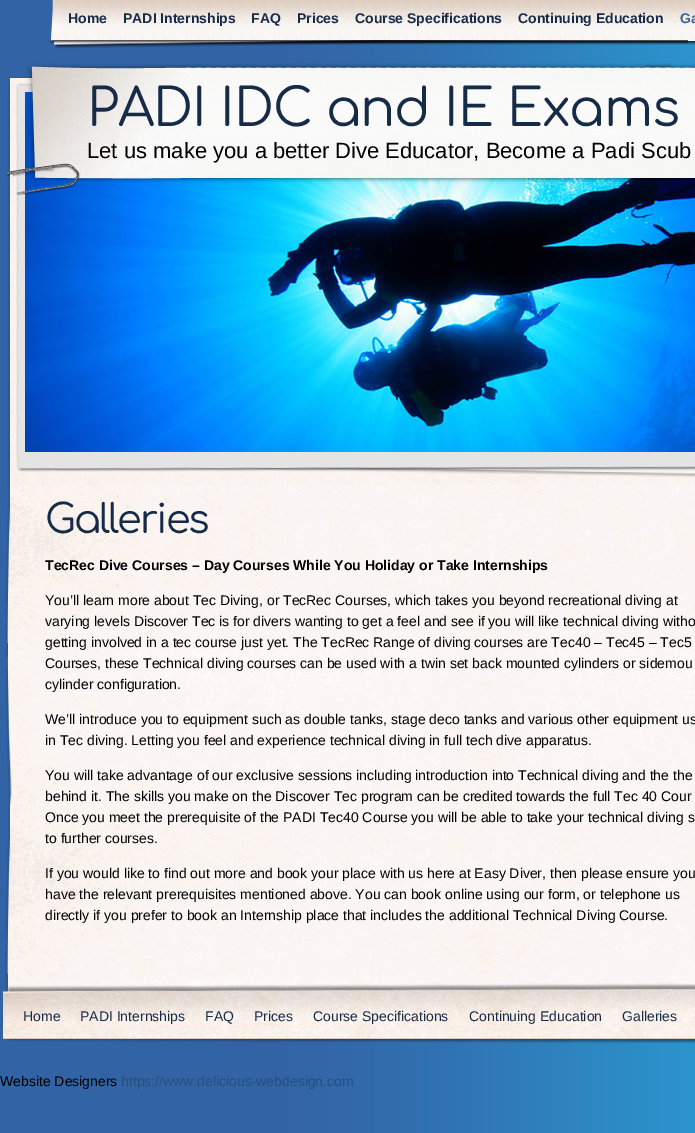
%!PS
<< /PageSize [695 1133] >> setpagedevice
/rgb { 3 { 255 div 3 1 roll } repeat setrgbcolor } def
/font { [ exch dup neg 0 0 3 -1 roll 0 0 ] selectfont } def
/text { moveto show } def
/picture { 5 dict begin { /h /w /y /x /name } { exch def } forall
  gsave x y translate w h scale
  w h 8 [w 0 0 h 0 0] name (r) file false 3 colorimage grestore end } def
0 1133 translate 1 -1 scale
4 setmiterlimit
255 255 255 rgb
0 0 695 1133 rectfill
(img_01.rgb) 0 0 695 1133 picture
(img_02.rgb) 51 0 9 41 picture
(img_03.rgb) 60 0 635 45 picture
(img_04.rgb) 49 40 639 9 picture
(img_05.rgb) 7 109 18 376 picture
(img_06.rgb) 7 76 26 53 picture
(img_07.rgb) 13 430 682 55 picture
(img_09.rgb) 25 92 670 360 picture
(img_08.rgb) 7 63 688 132 picture
(img_10.rgb) 5 485 690 507 picture
(img_11.rgb) 3 983 692 61 picture
/LiberationSans-Bold 14 font
22 43 72 rgb
(Home) 68 23 text
(PADI Internships) 123 23 text
(FAQ) 251 23 text
(Prices) 297 23 text
(Course Specifications) 355 23 text
(Continuing Education) 518 23 text
51 102 153 rgb
(Ga) 680 23 text
/Comfortaa-Regular 52 font
22 43 72 rgb
87 126 moveto -1 0 (PADI IDC and IE Exams) ashow
/LiberationSans-Regular 22 font
0 0 0 rgb
(Let us make you a better Dive Educator, Become a Padi Scub) 87 158 text
/Comfortaa-Regular 40 font
22 43 72 rgb
45 533 moveto -2 0 (Galleries) ashow
/LiberationSans-Bold 14 font
0 0 0 rgb
(TecRec Dive Courses – Day Courses While You Holiday or Take Internships) 45 570 text
/LiberationSans-Regular 14 font
(You’ll learn more about Tec Diving, or TecRec Courses, which takes you beyond recreational diving at) 45 605 text
(varying levels Discover Tec is for divers wanting to get a feel and see if you will like technical diving witho) 45 626 text
(getting involved in a tec course just yet. The TecRec Range of diving courses are Tec40 – Tec45 – Tec5) 45 647 text
(Courses, these Technical diving courses can be used with a twin set back mounted cylinders or sidemou) 45 668 text
(cylinder configuration.) 45 689 text
(We’ll introduce you to equipment such as double tanks, stage deco tanks and various other equipment us) 45 724 text
(in Tec diving. Letting you feel and experience technical diving in full tech dive apparatus.) 45 745 text
(You will take advantage of our exclusive sessions including introduction into Technical diving and the the) 45 780 text
(behind it. The skills you make on the Discover Tec program can be credited towards the full Tec 40 Cour) 45 801 text
(Once you meet the prerequisite of the PADI Tec40 Course you will be able to take your technical diving s) 45 822 text
(to further courses.) 45 843 text
(If you would like to find out more and book your place with us here at Easy Diver, then please ensure you) 45 878 text
(have the relevant prerequisites mentioned above. You can book online using our form, or telephone us) 45 899 text
(directly if you prefer to book an Internship place that includes the additional Technical Diving Course.) 45 920 text
22 43 72 rgb
(Home) 23 1021 text
(PADI Internships) 80 1021 text
(FAQ) 205 1021 text
(Prices) 254 1021 text
(Course Specifications) 313 1021 text
(Continuing Education) 469 1021 text
(Galleries) 622 1021 text
0 0 0 rgb
(Website Designers) 0 1086 text
36 80 126 rgb
(https://www.delicious-webdesign.com) 121 1086 text
showpage
